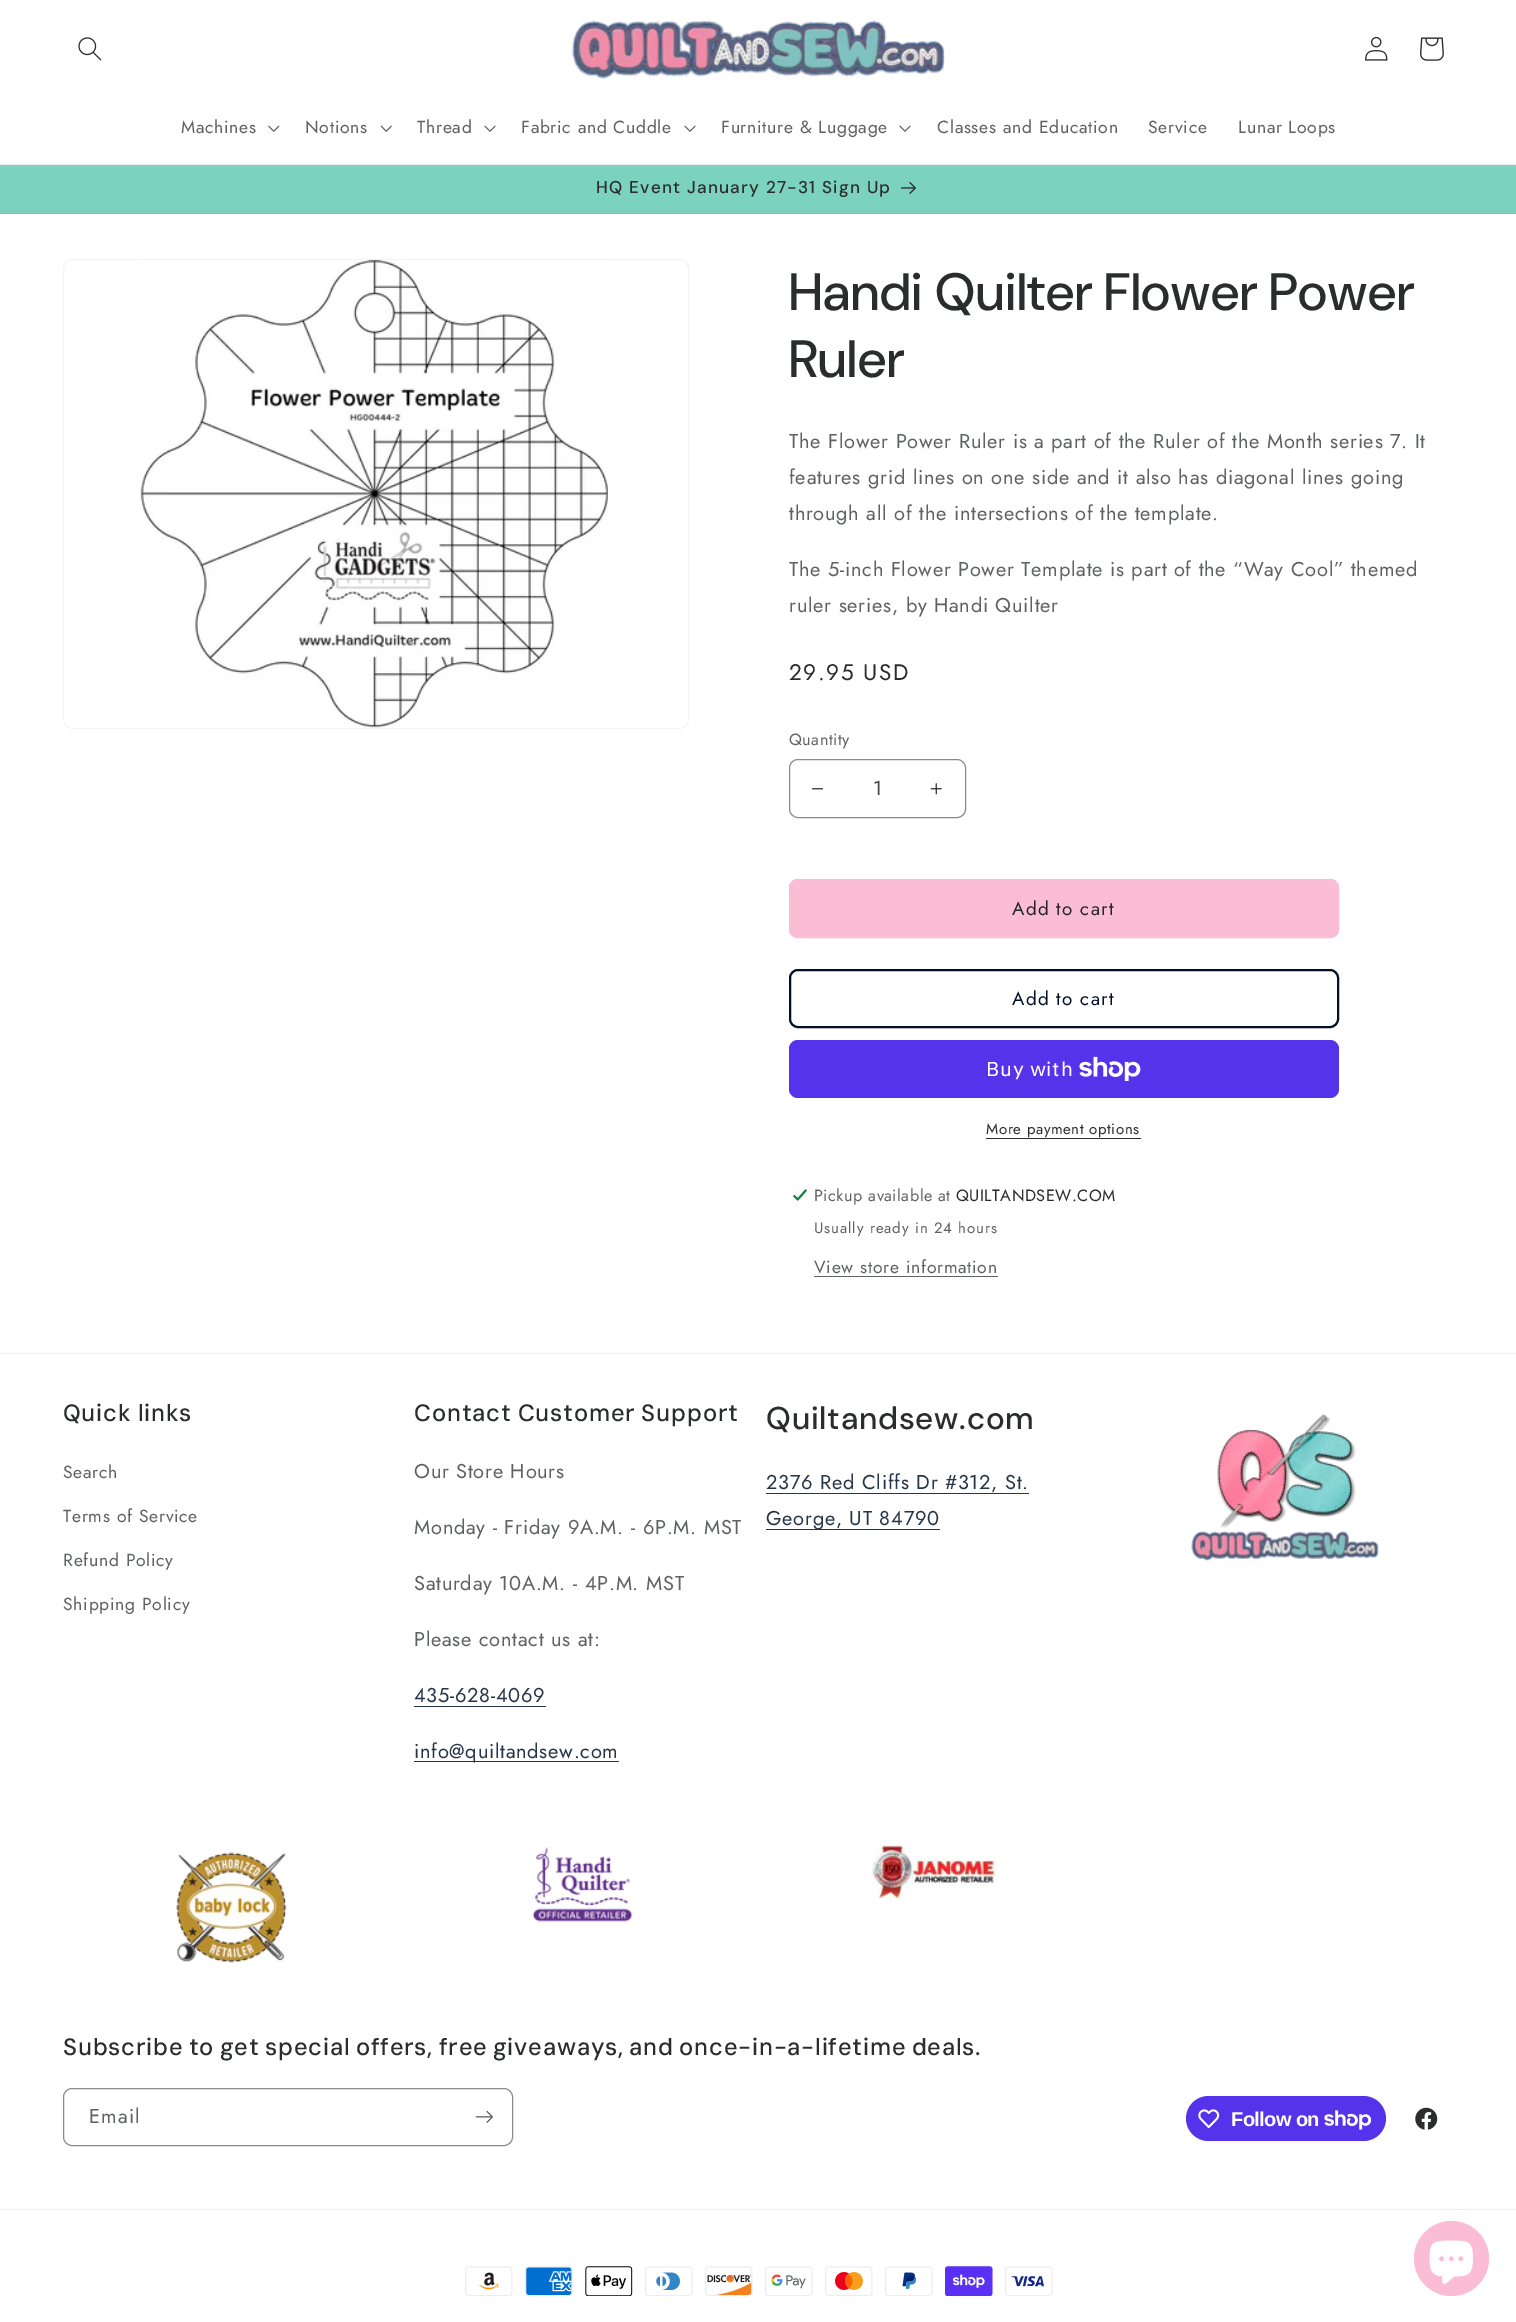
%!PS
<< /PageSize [1516 2322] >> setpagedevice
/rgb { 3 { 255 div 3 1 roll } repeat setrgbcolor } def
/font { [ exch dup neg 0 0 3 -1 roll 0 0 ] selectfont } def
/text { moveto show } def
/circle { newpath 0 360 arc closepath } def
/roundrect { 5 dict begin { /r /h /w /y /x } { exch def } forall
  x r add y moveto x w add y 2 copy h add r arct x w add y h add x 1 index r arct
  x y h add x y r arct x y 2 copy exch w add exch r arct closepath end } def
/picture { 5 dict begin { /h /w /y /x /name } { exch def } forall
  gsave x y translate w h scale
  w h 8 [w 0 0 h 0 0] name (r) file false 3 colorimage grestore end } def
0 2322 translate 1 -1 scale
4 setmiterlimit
255 255 255 rgb
0 0 1516 2322 rectfill
238 238 238 rgb
0 164 1516 1 rectfill
(img_01.rgb) 78 37 24 24 picture
(img_02.rgb) 571 20 374 59 picture
(img_03.rgb) 1365 36 23 25 picture
(img_04.rgb) 1420 37 24 24 picture
(img_05.rgb) 268 125 12 7 picture
(img_06.rgb) 380 125 12 7 picture
(img_07.rgb) 484 125 12 7 picture
(img_07.rgb) 684 125 12 7 picture
(img_07.rgb) 899 125 12 7 picture
123 210 190 rgb
0 165 1516 48 rectfill
117 197 178 rgb
0 213 1516 1 rectfill
(img_08.rgb) 901 182 15 12 picture
244 244 245 rgb
63.5 259.5 625 469 9.5 roundrect stroke
(img_09.rgb) 140 260 468 468 picture
(img_10.rgb) 811 788 13 2 picture
(img_11.rgb) 930 783 12 12 picture
138 139 140 rgb
789.5 759.5 176 58 8.5 roundrect stroke
250 189 212 rgb
789 879 550 59 9 roundrect fill
789.5 879.5 549 58 8.5 roundrect stroke
0 17 40 rgb
2 setlinewidth
790 970 548 57 8 roundrect stroke
84 51 235 rgb
789 1040 550 58 9 roundrect fill
(img_12.rgb) 1079 1056 62 25 picture
43 44 45 rgb
986 1138 155 1 rectfill
(img_13.rgb) 792 1188 16 14 picture
96 97 98 rgb
814 1276 184 1 rectfill
238 238 238 rgb
0 1353 1516 1 rectfill
38 53 72 rgb
414 1706 132 1 rectfill
414 1761 205 1 rectfill
766 1493 263 1 rectfill
766 1529 174 1 rectfill
(img_14.rgb) 1191 1414 188 147 picture
(img_15.rgb) 176 1852 111 111 picture
(img_16.rgb) 532 1847 101 75 picture
(img_17.rgb) 871 1845 126 54 picture
138 139 140 rgb
1 setlinewidth
63.5 2088.5 449 57 8.5 roundrect stroke
(img_18.rgb) 475 2110 18 13 picture
84 51 235 rgb
1186 2096 200 45 22.5 roundrect fill
(img_19.rgb) 1198 2109 22 20 picture
(img_20.rgb) 1324 2110 47 20 picture
(img_21.rgb) 1415 2107 23 23 picture
238 238 238 rgb
0 2209 1516 1 rectfill
(img_22.rgb) 465 2266 48 30 picture
(img_23.rgb) 525 2266 48 30 picture
(img_24.rgb) 585 2266 48 30 picture
(img_25.rgb) 645 2266 48 30 picture
(img_26.rgb) 705 2266 48 30 picture
(img_27.rgb) 765 2266 48 30 picture
(img_28.rgb) 825 2266 48 30 picture
(img_29.rgb) 885 2266 48 30 picture
(img_30.rgb) 945 2266 48 30 picture
(img_31.rgb) 1005 2266 48 30 picture
250 189 212 rgb
1451.5 2258.5 37.5 circle fill
(img_32.rgb) 1429 2240 44 45 picture
/Jost-Regular 17.5 font
96 97 98 rgb
181 133 moveto 0.75 0 (Machines) ashow
305 133 moveto 0.75 0 (Notions) ashow
417 133 moveto 0.75 0 (Thread) ashow
521 133 moveto 0.75 0 (Fabric and Cuddle) ashow
721 133 moveto 0.75 0 (Furniture & Luggage) ashow
937 133 moveto 0.75 0 (Classes and Education) ashow
1148 133 moveto 0.75 0 (Service) ashow
1238 133 moveto 0.75 0 (Lunar Loops) ashow
/DMSans-Medium 17.1 font
43 44 45 rgb
596 193 moveto 1.25 0 (HQ Event January 27-31 Sign Up) ashow
/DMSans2-Medium 52.5 font
789 310 moveto 0.8 0 (Handi Quilter Flower Power) ashow
789 377 moveto 0.8 0 (Ruler) ashow
/Jost-Regular 20 font
96 97 98 rgb
789 448 moveto 0.75 0 (The Flower Power Ruler is a part of the Ruler of the Month series 7. It) ashow
789 484 moveto 0.75 0 (features grid lines on one side and it also has diagonal lines going) ashow
789 520 moveto 0.75 0 (through all of the intersections of the template.) ashow
789 576 moveto 0.75 0 (The 5-inch Flower Power Template is part of the “Way Cool” themed) ashow
789 612 moveto 0.75 0 (ruler series, by Handi Quilter) ashow
/Jost-Regular 22.5 font
43 44 45 rgb
789 680 moveto 1.6 0 (29.95 USD) ashow
/Jost-Regular 16.25 font
96 97 98 rgb
789 745 moveto 0.5 0 (Quantity) ashow
/Jost-Regular 20 font
75 76 77 rgb
(1) 873 795 text
/Jost-Regular 18.75 font
38 38 38 rgb
1012 915 moveto 1.25 0 (Add to cart) ashow
0 17 40 rgb
1012 1005 moveto 1.25 0 (Add to cart) ashow
/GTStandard-Regular 20 font
255 255 255 rgb
986 1076 moveto 0.75 0 (Buy with) ashow
/Jost-Regular 15 font
43 44 45 rgb
986 1134 moveto 0.6 0 (More payment options) ashow
/Jost-Regular 16.25 font
96 97 98 rgb
814 1201 moveto 0.5 0 (Pickup available at) ashow
43 44 45 rgb
956 1201 moveto 0.5 0 (QUILTANDSEW.COM) ashow
/Jost-Regular 15 font
96 97 98 rgb
814 1233 moveto 0.9 0 (Usually ready in 24 hours) ashow
/Jost-Regular 17.5 font
814 1273 moveto 0.75 0 (View store information) ashow
/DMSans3-Medium 23.6 font
43 44 45 rgb
63 1421 moveto 0.8 0 (Quick links) ashow
/Jost-Regular 17.5 font
96 97 98 rgb
63 1478 moveto 0.75 0 (Search) ashow
63 1522 moveto 0.75 0 (Terms of Service) ashow
63 1566 moveto 0.75 0 (Refund Policy) ashow
63 1610 moveto 0.75 0 (Shipping Policy) ashow
/DMSans3-Medium 23.6 font
43 44 45 rgb
414 1421 moveto -1 0 32 0.8 0 (Contact Customer Support) awidthshow
/Jost-Regular 20 font
96 97 98 rgb
414 1478 moveto 0.75 0 (Our Store Hours) ashow
414 1534 moveto 0.75 0 (Monday - Friday 9A.M. - 6P.M. MST) ashow
414 1590 moveto 0.75 0 (Saturday 10A.M. - 4P.M. MST) ashow
414 1646 moveto 0.75 0 (Please contact us at:) ashow
38 53 72 rgb
414 1702 moveto 0.75 0 (435-628-4069) ashow
414 1758 moveto 0.75 0 (info@quiltandsew.com) ashow
/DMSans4-Medium 31.5 font
43 44 45 rgb
766 1429 moveto 0.8 0 (Quiltandsew.com) ashow
/Jost-Regular 20 font
38 53 72 rgb
766 1489 moveto 0.75 0 (2376 Red Cliffs Dr #312, St.) ashow
766 1525 moveto 0.75 0 (George, UT 84790) ashow
/DMSans3-Medium 23.6 font
43 44 45 rgb
63 2055 moveto -1.5 0 32 0.8 0 (Subscribe to get special offers, free giveaways, and once-in-a-lifetime deals.) awidthshow
/Jost-Regular 20 font
96 97 98 rgb
89 2123 moveto 1.25 0 (Email) ashow
/LiberationSans-Bold 20 font
255 255 255 rgb
1231 2126 moveto -0.6 0 (Follow on) ashow
showpage
